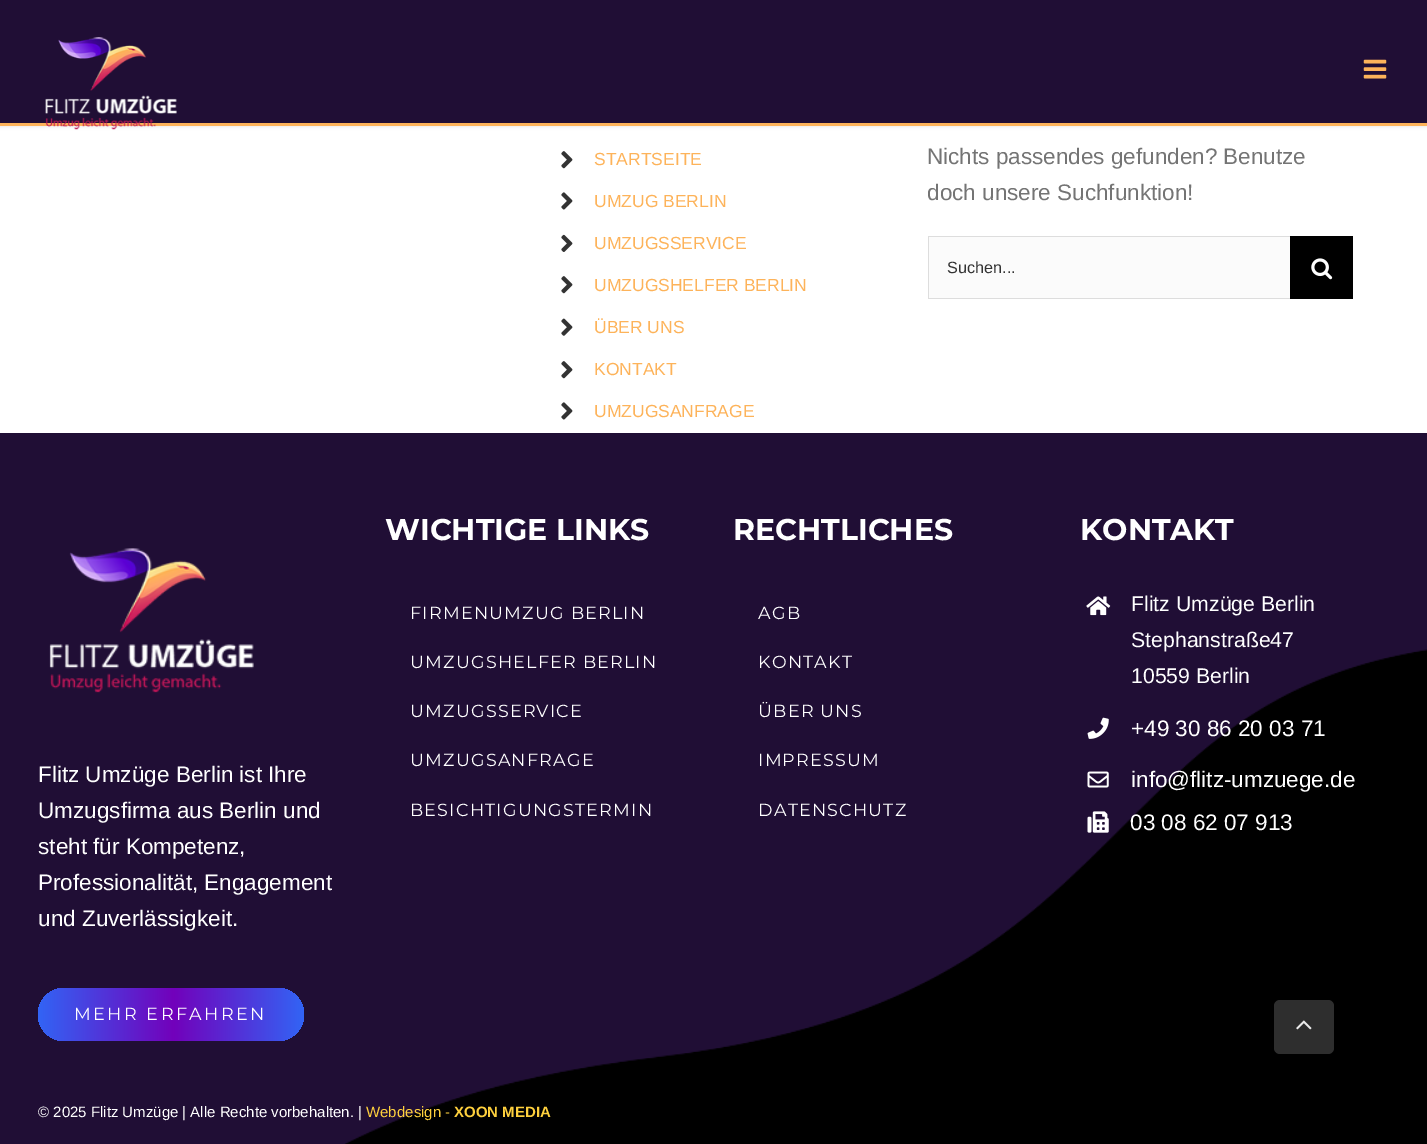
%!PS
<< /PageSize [1427 1144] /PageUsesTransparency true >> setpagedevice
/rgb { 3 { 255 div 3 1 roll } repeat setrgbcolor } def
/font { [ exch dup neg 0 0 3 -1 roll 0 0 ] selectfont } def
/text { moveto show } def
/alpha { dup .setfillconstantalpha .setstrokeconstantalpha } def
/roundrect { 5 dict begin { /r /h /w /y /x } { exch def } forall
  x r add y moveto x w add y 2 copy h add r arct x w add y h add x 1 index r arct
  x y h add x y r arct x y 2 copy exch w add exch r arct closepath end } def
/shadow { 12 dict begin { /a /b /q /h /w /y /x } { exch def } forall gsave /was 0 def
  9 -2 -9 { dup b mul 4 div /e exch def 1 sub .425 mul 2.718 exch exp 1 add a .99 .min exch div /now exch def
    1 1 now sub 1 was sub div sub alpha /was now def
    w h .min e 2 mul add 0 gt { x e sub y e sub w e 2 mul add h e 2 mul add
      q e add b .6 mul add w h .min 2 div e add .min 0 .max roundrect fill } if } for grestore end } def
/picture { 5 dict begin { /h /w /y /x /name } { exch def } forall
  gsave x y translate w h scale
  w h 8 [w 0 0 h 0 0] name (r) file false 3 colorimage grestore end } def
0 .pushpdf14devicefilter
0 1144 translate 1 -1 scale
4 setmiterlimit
255 255 255 rgb
0 0 1427 1144 rectfill
0 0 0 rgb
0 1 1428 125 0 2 0.12 shadow
32 14 53 rgb
0 0 1427 123 rectfill
253 179 90 rgb
0 123 1427 3 rectfill
(img_01.rgb) 45 37 132 93 picture
(img_02.rgb) 1363 59 24 20 picture
(img_03.rgb) 561 151 12 18 picture
(img_04.rgb) 561 192 12 18 picture
(img_05.rgb) 561 234 12 18 picture
(img_03.rgb) 561 276 12 18 picture
(img_06.rgb) 561 318 12 18 picture
(img_03.rgb) 561 361 12 18 picture
(img_04.rgb) 561 402 12 18 picture
251 251 251 rgb
929 237 361 61 rectfill
221 221 221 rgb
928 236 362 1 rectfill
928 298 362 1 rectfill
928 236 1 63 rectfill
0 0 0 rgb
1290 236 63 63 rectfill
(img_07.rgb) 1311 258 22 22 picture
32 14 53 rgb
0 433 1427 711 rectfill
(img_08.rgb) 345 649 1082 495 picture
(img_09.rgb) 1086 596 25 20 picture
(img_10.rgb) 1087 717 22 22 picture
(img_11.rgb) 1087 771 22 17 picture
(img_12.rgb) 1087 811 22 22 picture
(img_13.rgb) 49 548 205 145 picture
gsave 38 988 266 53 26.5 roundrect clip newpath
<< /ShadingType 2 /ColorSpace /DeviceRGB /Coords [38 1014 304 1014] /Extend [true true] /Function << /FunctionType 3 /Domain [0 1] /Functions [<< /FunctionType 2 /Domain [0 1] /C0 [0.196 0.392 0.961] /C1 [0.447 0.004 0.733] /N 1 >> << /FunctionType 2 /Domain [0 1] /C0 [0.447 0.004 0.733] /C1 [0.196 0.392 0.961] /N 1 >>] /Bounds [0.51] /Encode [0 1 0 1] >> >> shfill grestore
46 46 46 rgb
1274 1000 60 54 6 roundrect fill
(img_14.rgb) 1296 1020 16 10 picture
/LiberationSans-Regular 17.5 font
253 179 90 rgb
(STARTSEITE) 594 165 text
(UMZUG BERLIN) 594 207 text
(UMZUGSSERVICE) 594 249 text
(UMZUGSHELFER BERLIN) 594 291 text
(ÜBER UNS) 594 333 text
(KONTAKT) 594 375 text
(UMZUGSANFRAGE) 594 417 text
/LiberationSans-Regular 22.5 font
116 116 116 rgb
(Nichts passendes gefunden? Benutze) 927 164 text
(doch unsere Suchfunktion!) 927 200 text
/LiberationSans-Regular 16.25 font
51 51 51 rgb
(Suchen...) 947 273 text
/Montserrat-Bold 30 font
255 255 255 rgb
(WICHTIGE LINKS) 385 540 text
/Montserrat-Regular 17.5 font
410 619 moveto 1.25 0 (FIRMENUMZUG BERLIN) ashow
410 668 moveto 1.25 0 (UMZUGSHELFER BERLIN) ashow
410 717 moveto 1.25 0 (UMZUGSSERVICE) ashow
410 766 moveto 1.25 0 (UMZUGSANFRAGE) ashow
410 816 moveto 1.25 0 (BESICHTIGUNGSTERMIN) ashow
/Montserrat-Bold 30 font
(RECHTLICHES) 733 540 text
/Montserrat-Regular 17.5 font
758 619 moveto 1.25 0 (AGB) ashow
758 668 moveto 1.25 0 (KONTAKT) ashow
758 717 moveto 1.25 0 (ÜBER UNS) ashow
758 766 moveto 1.25 0 (IMPRESSUM) ashow
758 816 moveto 1.25 0 (DATENSCHUTZ) ashow
/Montserrat-Bold 30 font
(KONTAKT) 1080 540 text
/LiberationSans-Regular 21.25 font
(Flitz Umzüge Berlin) 1131 611 text
(Stephanstraße47) 1131 647 text
(10559 Berlin) 1131 683 text
/LiberationSans-Regular 22.5 font
(+49 30 86 20 03 71) 1131 736 text
(info@flitz-umzuege.de) 1131 787 text
(03 08 62 07 913) 1130 830 text
(Flitz Umzüge Berlin ist Ihre) 38 782 text
(Umzugsfirma aus Berlin und) 38 818 text
(steht für Kompetenz,) 38 854 text
(Professionalität, Engagement) 38 890 text
(und Zuverlässigkeit.) 38 926 text
/Montserrat-Regular 17.5 font
74 1020 moveto 2.5 0 (MEHR ERFAHREN) ashow
/LiberationSans-Regular 15 font
(© 2025 Flitz Umzüge | Alle Rechte vorbehalten. |) 38 1117 text
254 208 61 rgb
(Webdesign -) 366 1117 text
/LiberationSans-Bold 15 font
(XOON MEDIA) 454 1117 text
.poppdf14devicefilter showpage
